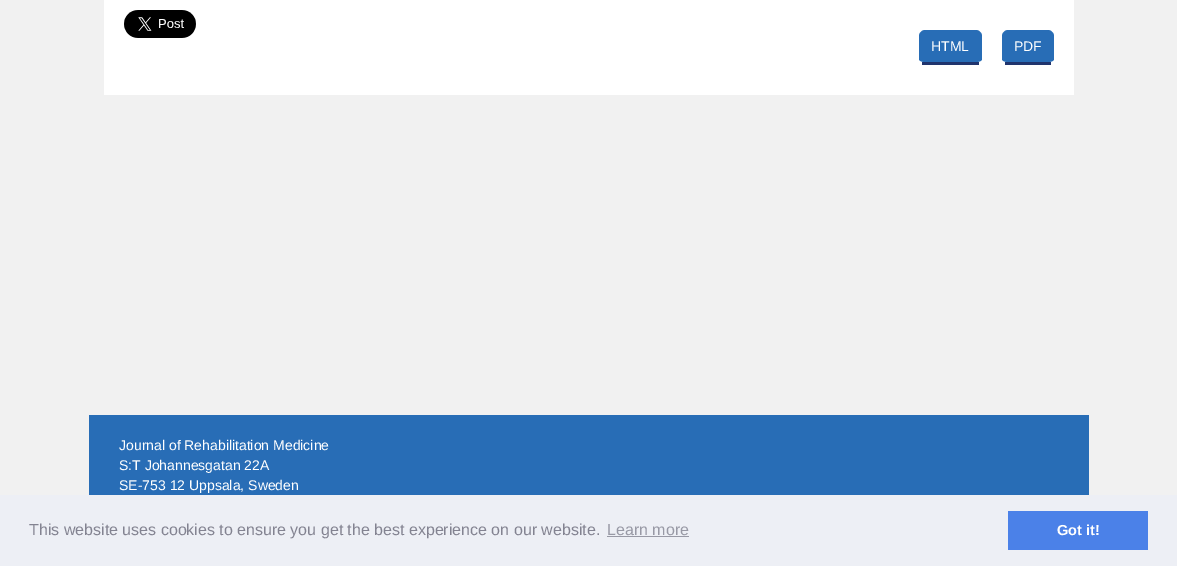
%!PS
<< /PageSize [1177 566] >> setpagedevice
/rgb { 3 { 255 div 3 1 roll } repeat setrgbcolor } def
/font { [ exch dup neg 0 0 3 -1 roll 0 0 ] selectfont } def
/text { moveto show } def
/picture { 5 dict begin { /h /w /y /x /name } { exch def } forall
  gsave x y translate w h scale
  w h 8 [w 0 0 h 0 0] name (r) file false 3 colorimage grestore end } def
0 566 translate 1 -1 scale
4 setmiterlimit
241 241 241 rgb
0 0 1177 566 rectfill
255 255 255 rgb
104 0 970 95 rectfill
(img_01.rgb) 124 10 72 28 picture
40 109 182 rgb
925 30 moveto 51 0 rlineto 3 0 6 3 6 6 rcurveto 0 23 rlineto 0 2 -3 3 -6 3 rcurveto -51 0 rlineto -3 0 -6 -1 -6 -3 rcurveto 0 -23 rlineto 0 -3 3 -6 6 -6 rcurveto closepath fill
32 52 109 rgb
922 62 57 3 rectfill
40 109 182 rgb
1008 30 moveto 40 0 rlineto 3 0 6 3 6 6 rcurveto 0 23 rlineto 0 2 -3 3 -6 3 rcurveto -40 0 rlineto -3 0 -6 -1 -6 -3 rcurveto 0 -23 rlineto 0 -3 3 -6 6 -6 rcurveto closepath fill
32 52 109 rgb
1005 62 46 3 rectfill
40 109 182 rgb
89 415 1000 80 rectfill
237 239 245 rgb
0 495 1177 71 rectfill
152 153 165 rgb
607 536 82 1 rectfill
75 129 232 rgb
1008 511 140 39 rectfill
/LiberationSans-Regular 14 font
255 255 255 rgb
(HTML) 931 51 text
(PDF) 1014 51 text
(Journal of Rehabilitation Medicine) 119 450 text
(S:T Johannesgatan 22A) 119 470 text
(SE-753 12 Uppsala, Sweden) 119 490 text
/LiberationSans-Regular 16 font
131 131 145 rgb
(This website uses cookies to ensure you get the best experience on our website.) 29 535 text
152 153 165 rgb
(Learn more) 607 535 text
/LiberationSans-Bold 14.5 font
255 255 255 rgb
(Got it!) 1057 535 text
showpage
